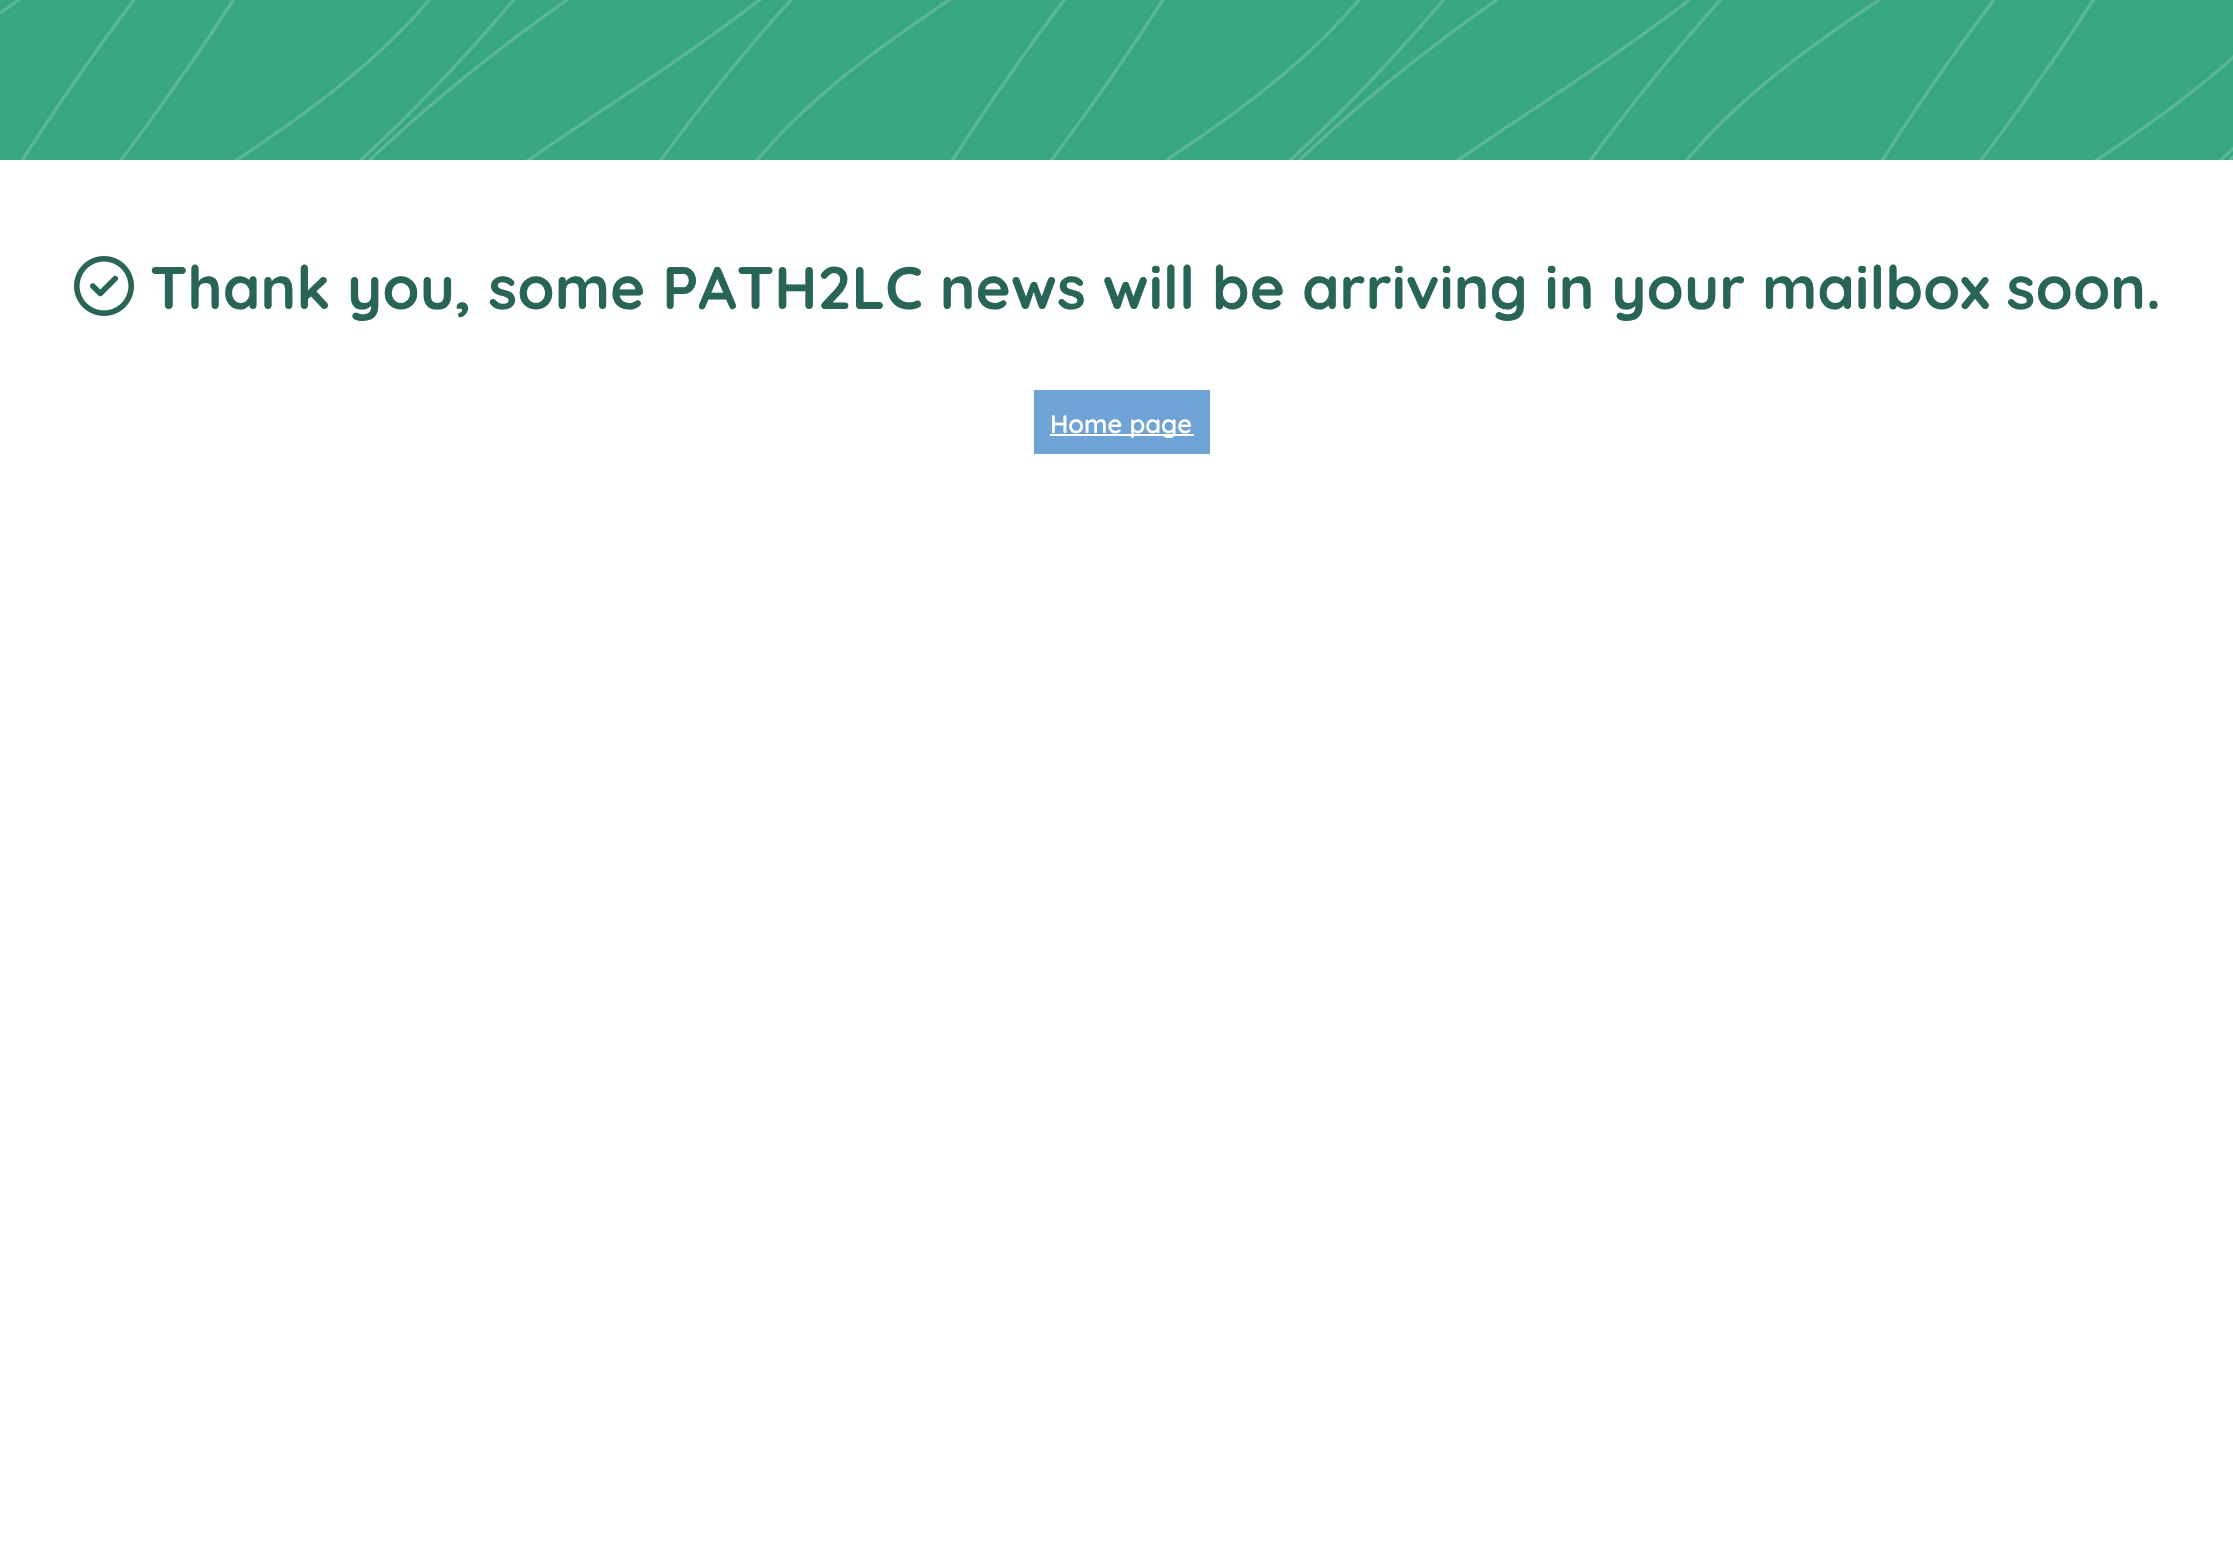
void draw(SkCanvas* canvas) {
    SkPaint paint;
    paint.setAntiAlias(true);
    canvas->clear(0xFFFFFFFF);
    canvas->drawImageRect(SkImages::DeferredFromEncodedData(SkData::MakeFromFileName("img1.png")), SkRect::MakeXYWH(0, 0, 2233, 160), SkSamplingOptions());
    canvas->drawImageRect(SkImages::DeferredFromEncodedData(SkData::MakeFromFileName("img2.png")), SkRect::MakeXYWH(74, 256, 60, 60), SkSamplingOptions());
    SkFont font1(fontMgr->matchFamilyStyle("Quicksand", SkFontStyle::Bold()), 60);
    font1.setSubpixel(true);
    paint.setColor(0xFF296557);
    canvas->drawString("Thank you, some PATH2LC news will be arriving in your mailbox soon.", 150, 309, font1, paint);
    paint.setColor(0xFF70A3D5);
    canvas->drawRect(SkRect::MakeXYWH(1034, 390, 176, 64), paint);
    paint.setColor(0xFFFFFFFF);
    canvas->drawRect(SkRect::MakeXYWH(1050, 434, 144, 2), paint);
    SkFont font2(fontMgr->matchFamilyStyle("Quicksand", SkFontStyle(600, SkFontStyle::kNormal_Width, SkFontStyle::kUpright_Slant)), 25.5f);
    font2.setSubpixel(true);
    canvas->drawString("Home page", 1050, 433, font2, paint);
}
